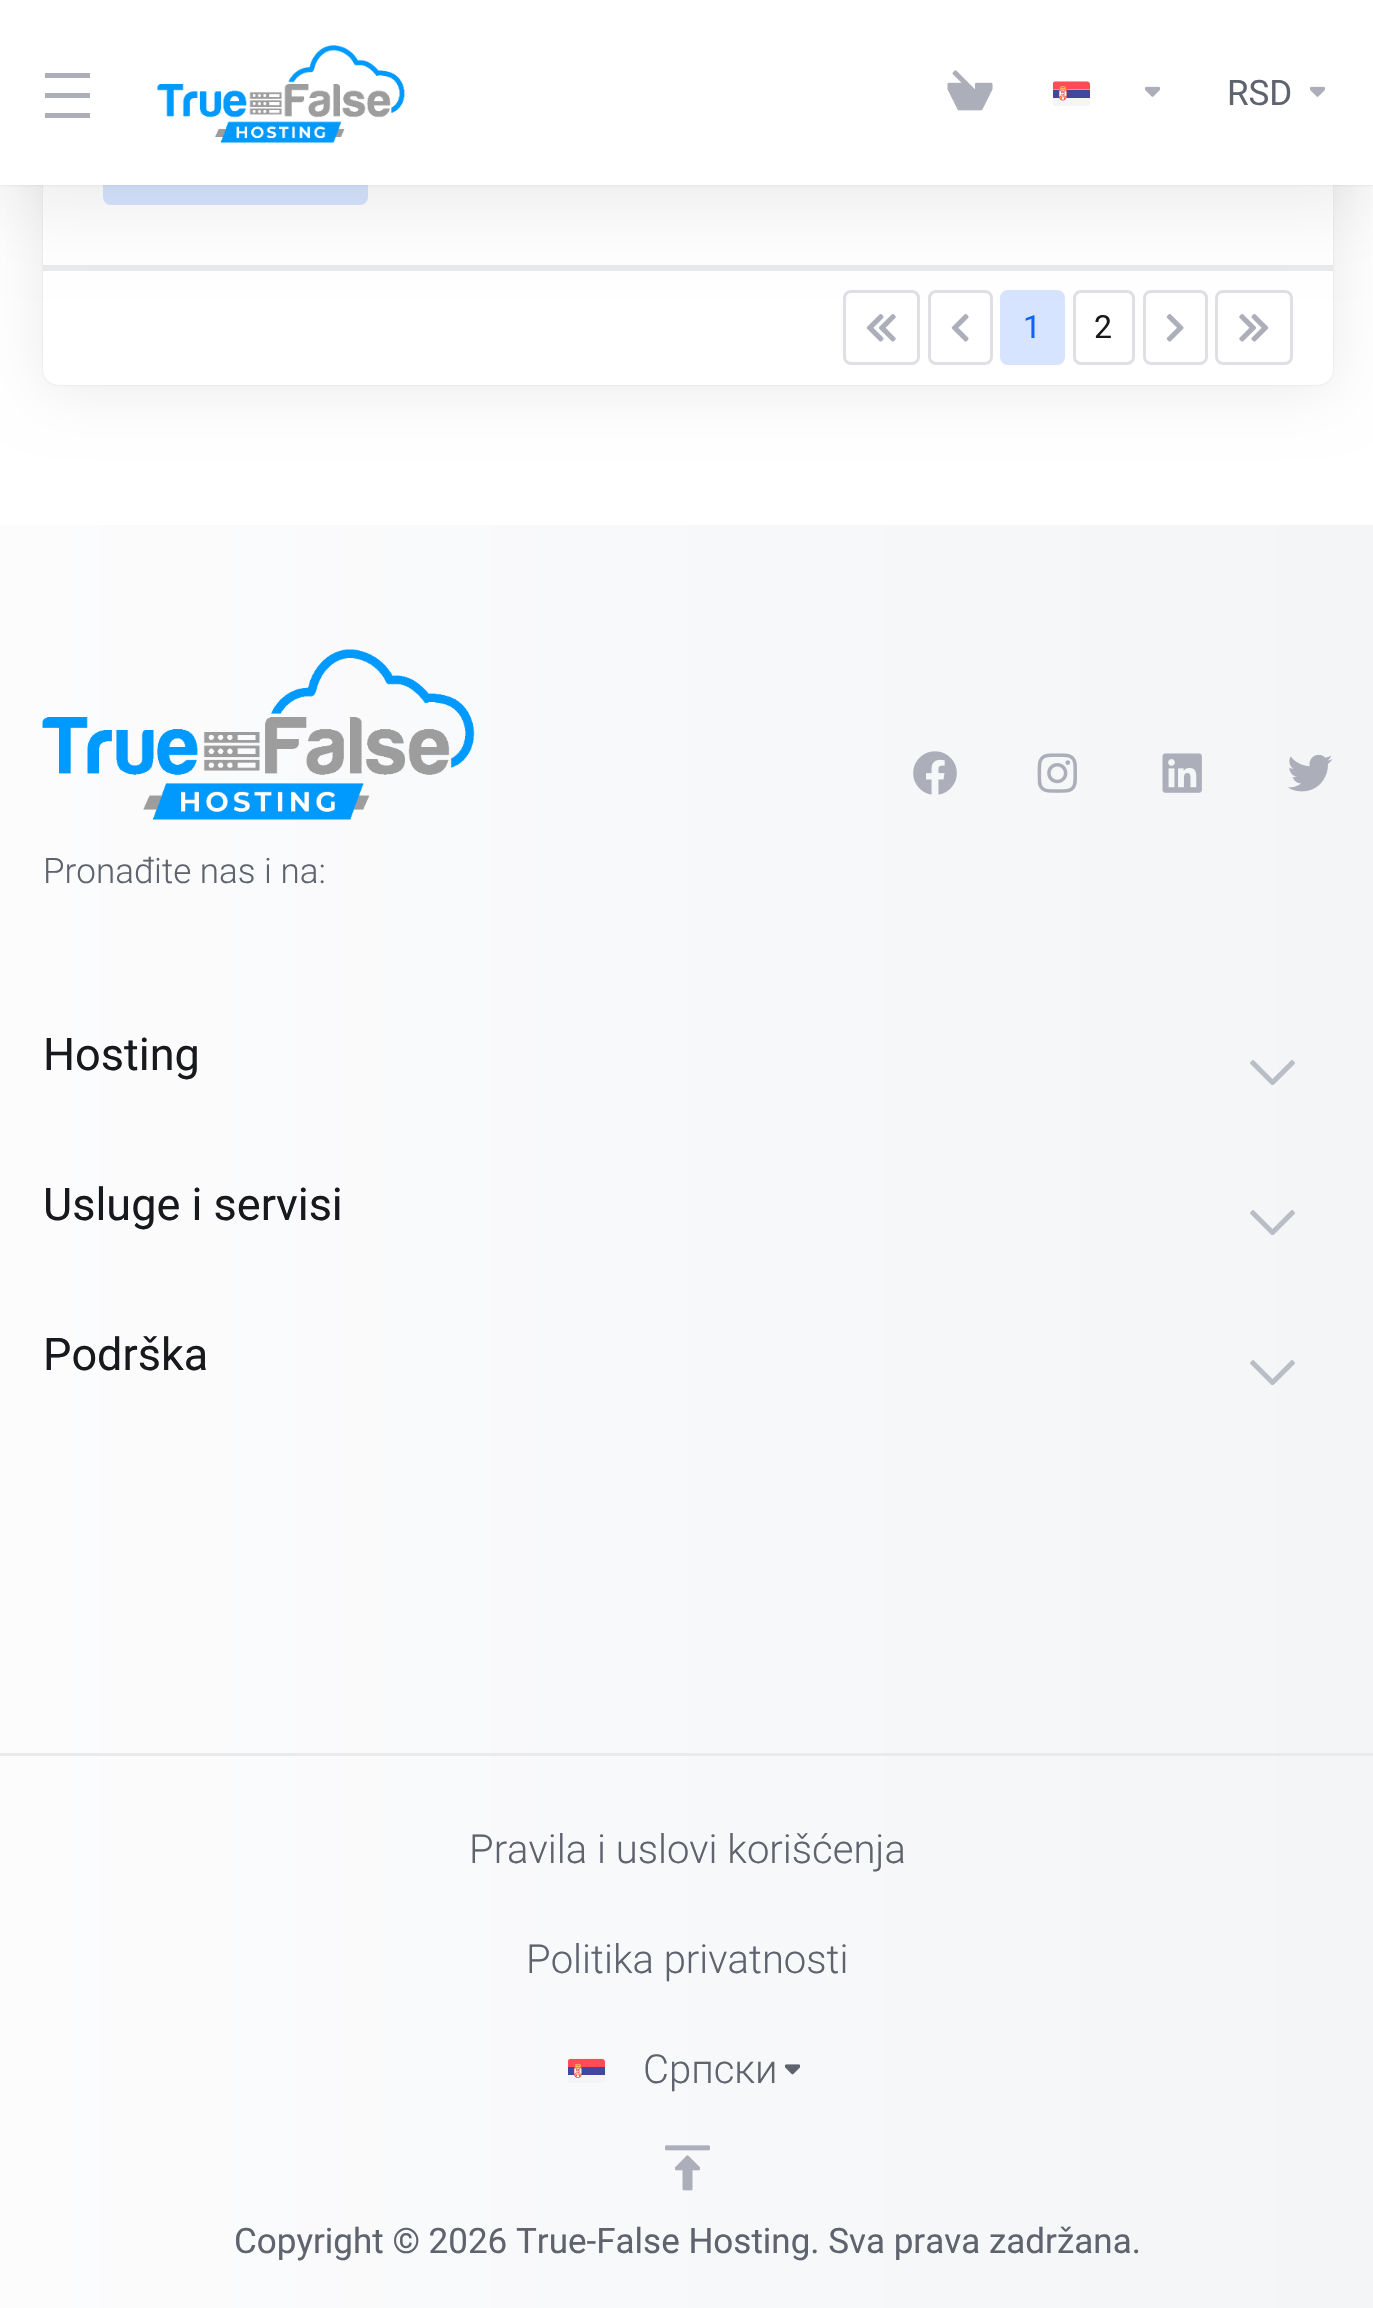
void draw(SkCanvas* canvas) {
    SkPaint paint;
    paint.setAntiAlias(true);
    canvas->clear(0xFFFFFFFF);
    paint.setColor(0x14000000);
    paint.setMaskFilter(SkMaskFilter::MakeBlur(kNormal_SkBlurStyle, 30));
    canvas->drawRoundRect(SkRect::MakeXYWH(43, -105, 1290, 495), 15, 15, paint);
    paint.setMaskFilter(nullptr);
    paint.setColor(0x1A000000);
    paint.setMaskFilter(SkMaskFilter::MakeBlur(kNormal_SkBlurStyle, 1));
    canvas->drawRoundRect(SkRect::MakeXYWH(43, -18, 1290, 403), 15, 15, paint);
    paint.setMaskFilter(nullptr);
    paint.setColor(0xFFFFFFFF);
    canvas->drawRoundRect(SkRect::MakeXYWH(43, -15, 1290, 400), 15, 15, paint);
    paint.setColor(0xFFD6E4FF);
    canvas->drawRoundRect(SkRect::MakeXYWH(104.5f, 116.5f, 262, 87), 6.5f, 6.5f, paint);
    paint.setStyle(SkPaint::kStroke_Style);
    paint.setStrokeWidth(3);
    canvas->drawRoundRect(SkRect::MakeXYWH(104.5f, 116.5f, 262, 87), 6.5f, 6.5f, paint);
    paint.setStyle(SkPaint::kFill_Style);
    paint.setColor(0xFFE9EAEC);
    canvas->drawRect(SkRect::MakeXYWH(43, 265, 1290, 6), paint);
    paint.setStyle(SkPaint::kStroke_Style);
    paint.setColor(0xFFDEE0E3);
    canvas->drawRoundRect(SkRect::MakeXYWH(844.5f, 291.5f, 74, 72), 6.5f, 6.5f, paint);
    canvas->drawImageRect(SkImages::DeferredFromEncodedData(SkData::MakeFromFileName("img5.png")), SkRect::MakeXYWH(866, 314, 30, 28), SkSamplingOptions());
    canvas->drawRoundRect(SkRect::MakeXYWH(929.5f, 291.5f, 62, 72), 6.5f, 6.5f, paint);
    canvas->drawImageRect(SkImages::DeferredFromEncodedData(SkData::MakeFromFileName("img6.png")), SkRect::MakeXYWH(951, 314, 18, 28), SkSamplingOptions());
    paint.setStyle(SkPaint::kFill_Style);
    paint.setColor(0xFFD6E4FF);
    canvas->drawRoundRect(SkRect::MakeXYWH(1001.5f, 291.5f, 62, 72), 6.5f, 6.5f, paint);
    paint.setStyle(SkPaint::kStroke_Style);
    canvas->drawRoundRect(SkRect::MakeXYWH(1001.5f, 291.5f, 62, 72), 6.5f, 6.5f, paint);
    paint.setColor(0xFFDEE0E3);
    canvas->drawRoundRect(SkRect::MakeXYWH(1074.5f, 291.5f, 59, 72), 6.5f, 6.5f, paint);
    canvas->drawRoundRect(SkRect::MakeXYWH(1144.5f, 291.5f, 62, 72), 6.5f, 6.5f, paint);
    canvas->drawImageRect(SkImages::DeferredFromEncodedData(SkData::MakeFromFileName("img7.png")), SkRect::MakeXYWH(1166, 314, 18, 28), SkSamplingOptions());
    canvas->drawRoundRect(SkRect::MakeXYWH(1216.5f, 291.5f, 75, 72), 6.5f, 6.5f, paint);
    canvas->drawImageRect(SkImages::DeferredFromEncodedData(SkData::MakeFromFileName("img8.png")), SkRect::MakeXYWH(1239, 314, 30, 28), SkSamplingOptions());
    paint.setStyle(SkPaint::kFill_Style);
    paint.setColor(0x14000000);
    paint.setMaskFilter(SkMaskFilter::MakeBlur(kNormal_SkBlurStyle, 40));
    canvas->drawRect(SkRect::MakeXYWH(0, 20, 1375, 185), paint);
    paint.setMaskFilter(nullptr);
    paint.setColor(0x1F000000);
    paint.setMaskFilter(SkMaskFilter::MakeBlur(kNormal_SkBlurStyle, 1));
    canvas->drawRect(SkRect::MakeXYWH(0, 0, 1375, 185), paint);
    paint.setMaskFilter(nullptr);
    paint.setColor(0xFFFFFFFF);
    canvas->drawRect(SkRect::MakeXYWH(0, 0, 1373, 185), paint);
    paint.setColor(0xFFACAFB9);
    canvas->drawRect(SkRect::MakeXYWH(45, 73, 45, 5), paint);
    canvas->drawRect(SkRect::MakeXYWH(45, 93, 45, 5), paint);
    canvas->drawRect(SkRect::MakeXYWH(45, 113, 45, 5), paint);
    canvas->drawImageRect(SkImages::DeferredFromEncodedData(SkData::MakeFromFileName("img1.png")), SkRect::MakeXYWH(157, 45, 248, 98), SkSamplingOptions());
    canvas->drawImageRect(SkImages::DeferredFromEncodedData(SkData::MakeFromFileName("img2.png")), SkRect::MakeXYWH(947, 70, 46, 41), SkSamplingOptions());
    canvas->drawImageRect(SkImages::DeferredFromEncodedData(SkData::MakeFromFileName("img3.png")), SkRect::MakeXYWH(1053, 81, 37, 25), SkSamplingOptions());
    canvas->drawImageRect(SkImages::DeferredFromEncodedData(SkData::MakeFromFileName("img4.png")), SkRect::MakeXYWH(1145, 86, 15, 11), SkSamplingOptions());
    SkFont font1(fontMgr->matchFamilyStyle("Roboto", SkFontStyle::Normal()), 35);
    font1.setSubpixel(true);
    paint.setColor(0xFF5E636E);
    canvas->drawString("RSD", 1227, 105, font1, paint);
    canvas->drawImageRect(SkImages::DeferredFromEncodedData(SkData::MakeFromFileName("img4.png")), SkRect::MakeXYWH(1310, 86, 15, 11), SkSamplingOptions());
    SkFont font2(fontMgr->matchFamilyStyle("Roboto", SkFontStyle::Normal()), 32);
    font2.setSubpixel(true);
    paint.setColor(0xFF1062FE);
    canvas->drawString("1", 1023, 338, font2, paint);
    paint.setColor(0xFF17191C);
    canvas->drawString("2", 1094, 338, font2, paint);
    {
        const SkColor colors[] = {0xFFF3F5F7, 0xFFFCFCFD};
        const float stops[] = {0, 1};
        const SkPoint ends[] = {{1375, 1418}, {0, 1418}};
        paint.setShader(SkGradientShader::MakeLinear(ends, colors, stops, 2, SkTileMode::kClamp));
        paint.setAlpha(255);
    }
    canvas->drawRect(SkRect::MakeXYWH(0, 525, 1373, 1783), paint);
    canvas->drawImageRect(SkImages::DeferredFromEncodedData(SkData::MakeFromFileName("img9.png")), SkRect::MakeXYWH(913, 751, 44, 44), SkSamplingOptions());
    canvas->drawImageRect(SkImages::DeferredFromEncodedData(SkData::MakeFromFileName("img10.png")), SkRect::MakeXYWH(1037, 753, 40, 40), SkSamplingOptions());
    canvas->drawImageRect(SkImages::DeferredFromEncodedData(SkData::MakeFromFileName("img11.png")), SkRect::MakeXYWH(1162, 753, 40, 40), SkSamplingOptions());
    canvas->drawImageRect(SkImages::DeferredFromEncodedData(SkData::MakeFromFileName("img12.png")), SkRect::MakeXYWH(1287, 754, 46, 38), SkSamplingOptions());
    canvas->drawImageRect(SkImages::DeferredFromEncodedData(SkData::MakeFromFileName("img13.png")), SkRect::MakeXYWH(42, 649, 433, 171), SkSamplingOptions());
    SkFont font3(fontMgr->matchFamilyStyle("Roboto", SkFontStyle(300, SkFontStyle::kNormal_Width, SkFontStyle::kUpright_Slant)), 35);
    font3.setSubpixel(true);
    paint.setShader(nullptr);
    paint.setColor(0xFF5E636E);
    canvas->drawString("Pronađite nas i na:", 43, 883, font3, paint);
    SkFont font4(fontMgr->matchFamilyStyle("Roboto", SkFontStyle::Normal()), 45);
    font4.setSubpixel(true);
    paint.setColor(0xFF17191C);
    canvas->drawString("Hosting", 43, 1070, font4, paint);
    canvas->drawImageRect(SkImages::DeferredFromEncodedData(SkData::MakeFromFileName("img14.png")), SkRect::MakeXYWH(1250, 1060, 45, 25), SkSamplingOptions());
    canvas->drawString("Usluge i servisi", 43, 1220, font4, paint);
    canvas->drawImageRect(SkImages::DeferredFromEncodedData(SkData::MakeFromFileName("img14.png")), SkRect::MakeXYWH(1250, 1210, 45, 25), SkSamplingOptions());
    canvas->drawString("Podrška", 43, 1370, font4, paint);
    canvas->drawImageRect(SkImages::DeferredFromEncodedData(SkData::MakeFromFileName("img14.png")), SkRect::MakeXYWH(1250, 1360, 45, 25), SkSamplingOptions());
    paint.setColor(0xFFE9EAEC);
    canvas->drawRect(SkRect::MakeXYWH(0, 1753, 1373, 3), paint);
    SkFont font5(fontMgr->matchFamilyStyle("Roboto", SkFontStyle(300, SkFontStyle::kNormal_Width, SkFontStyle::kUpright_Slant)), 40);
    font5.setSubpixel(true);
    paint.setColor(0xFF5E636E);
    canvas->drawString("Pravila i uslovi korišćenja", 469, 1863, font5, paint);
    canvas->drawString("Politika privatnosti", 526, 1973, font5, paint);
    canvas->drawImageRect(SkImages::DeferredFromEncodedData(SkData::MakeFromFileName("img15.png")), SkRect::MakeXYWH(568, 2058, 37, 25), SkSamplingOptions());
    canvas->drawString("Српски", 643, 2083, font5, paint);
    canvas->drawImageRect(SkImages::DeferredFromEncodedData(SkData::MakeFromFileName("img16.png")), SkRect::MakeXYWH(785, 2064, 15, 11), SkSamplingOptions());
    canvas->drawImageRect(SkImages::DeferredFromEncodedData(SkData::MakeFromFileName("img17.png")), SkRect::MakeXYWH(665, 2145, 45, 46), SkSamplingOptions());
    canvas->drawString("Copyright © 2026 True-False Hosting. Sva prava zadržana.", 234, 2253, font1, paint);
}
